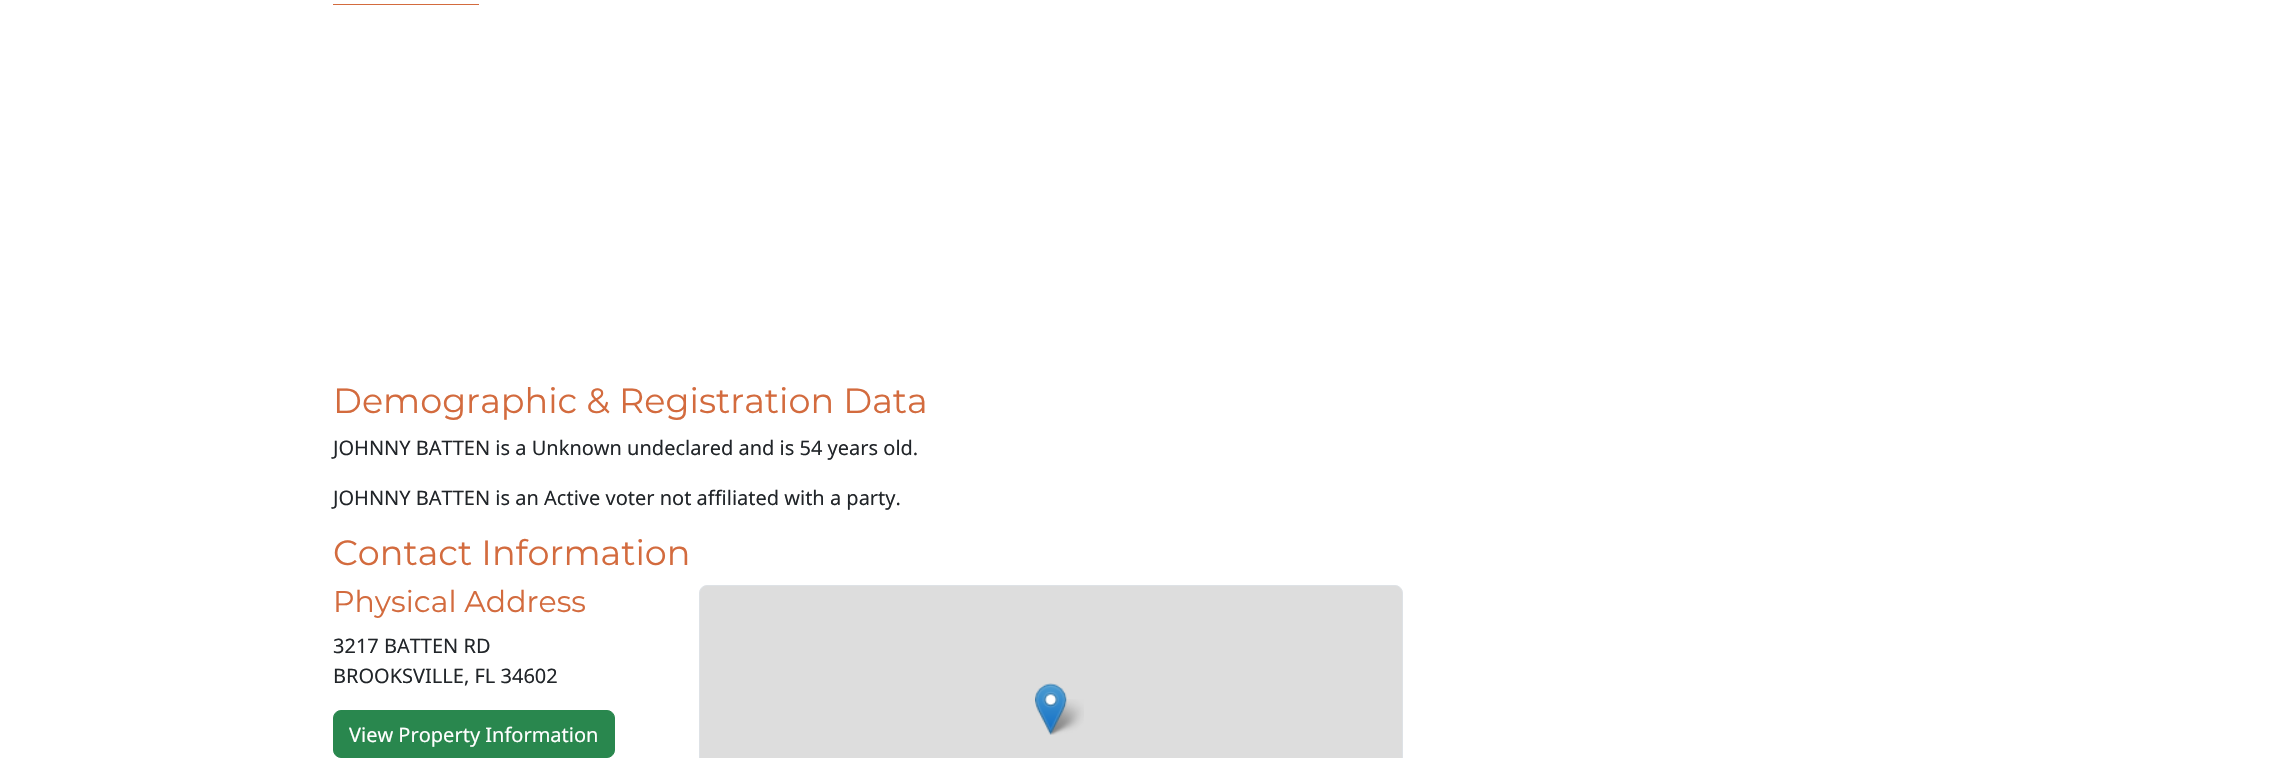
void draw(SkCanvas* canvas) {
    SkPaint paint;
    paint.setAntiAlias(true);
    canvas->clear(0xFFFFFFFF);
    paint.setColor(0xFFD36B3E);
    canvas->drawRect(SkRect::MakeXYWH(333, 4, 146, 1), paint);
    SkFont font1(fontMgr->matchFamilyStyle("Montserrat", SkFontStyle::Normal()), 35);
    font1.setSubpixel(true);
    canvas->drawString("Demographic & Registration Data", 333, 413, font1, paint);
    SkFont font2(fontMgr->matchFamilyStyle("Noto Sans", SkFontStyle::Normal()), 20);
    font2.setSubpixel(true);
    paint.setColor(0xFF212529);
    canvas->drawString("JOHNNY BATTEN is a Unknown undeclared and is 54 years old.", 333, 455, font2, paint);
    canvas->drawString("JOHNNY BATTEN is an Active voter not affiliated with a party.", 333, 505, font2, paint);
    paint.setColor(0xFFD36B3E);
    canvas->drawString("Contact Information", 333, 565, font1, paint);
    SkFont font3(fontMgr->matchFamilyStyle("Montserrat", SkFontStyle::Normal()), 30);
    font3.setSubpixel(true);
    canvas->drawString("Physical Address", 333, 612, font3, paint);
    paint.setColor(0xFF212529);
    canvas->drawString("3217 BATTEN RD", 333, 653, font2, paint);
    canvas->drawString("BROOKSVILLE, FL 34602", 333, 683, font2, paint);
    paint.setColor(0xFF29874E);
    canvas->drawRoundRect(SkRect::MakeXYWH(333.5f, 710.5f, 281, 47), 7.5f, 7.5f, paint);
    paint.setStyle(SkPaint::kStroke_Style);
    paint.setStrokeWidth(1);
    canvas->drawRoundRect(SkRect::MakeXYWH(333.5f, 710.5f, 281, 47), 7.5f, 7.5f, paint);
    paint.setStyle(SkPaint::kFill_Style);
    paint.setColor(0xFFFFFFFF);
    canvas->drawString("View Property Information", 349, 742, font2, paint);
    paint.setColor(0xFFDDDDDD);
    canvas->drawRoundRect(SkRect::MakeXYWH(699.5f, 585.5f, 703, 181), 7.5f, 7.5f, paint);
    paint.setStyle(SkPaint::kStroke_Style);
    paint.setColor(0xFFDEE2E6);
    canvas->drawRoundRect(SkRect::MakeXYWH(699.5f, 585.5f, 703, 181), 7.5f, 7.5f, paint);
    canvas->drawImageRect(SkImages::DeferredFromEncodedData(SkData::MakeFromFileName("img2.png")), SkRect::MakeXYWH(1046, 699, 38, 36), SkSamplingOptions());
    canvas->drawImageRect(SkImages::DeferredFromEncodedData(SkData::MakeFromFileName("img1.png")), SkRect::MakeXYWH(1035, 683, 32, 52), SkSamplingOptions());
}
